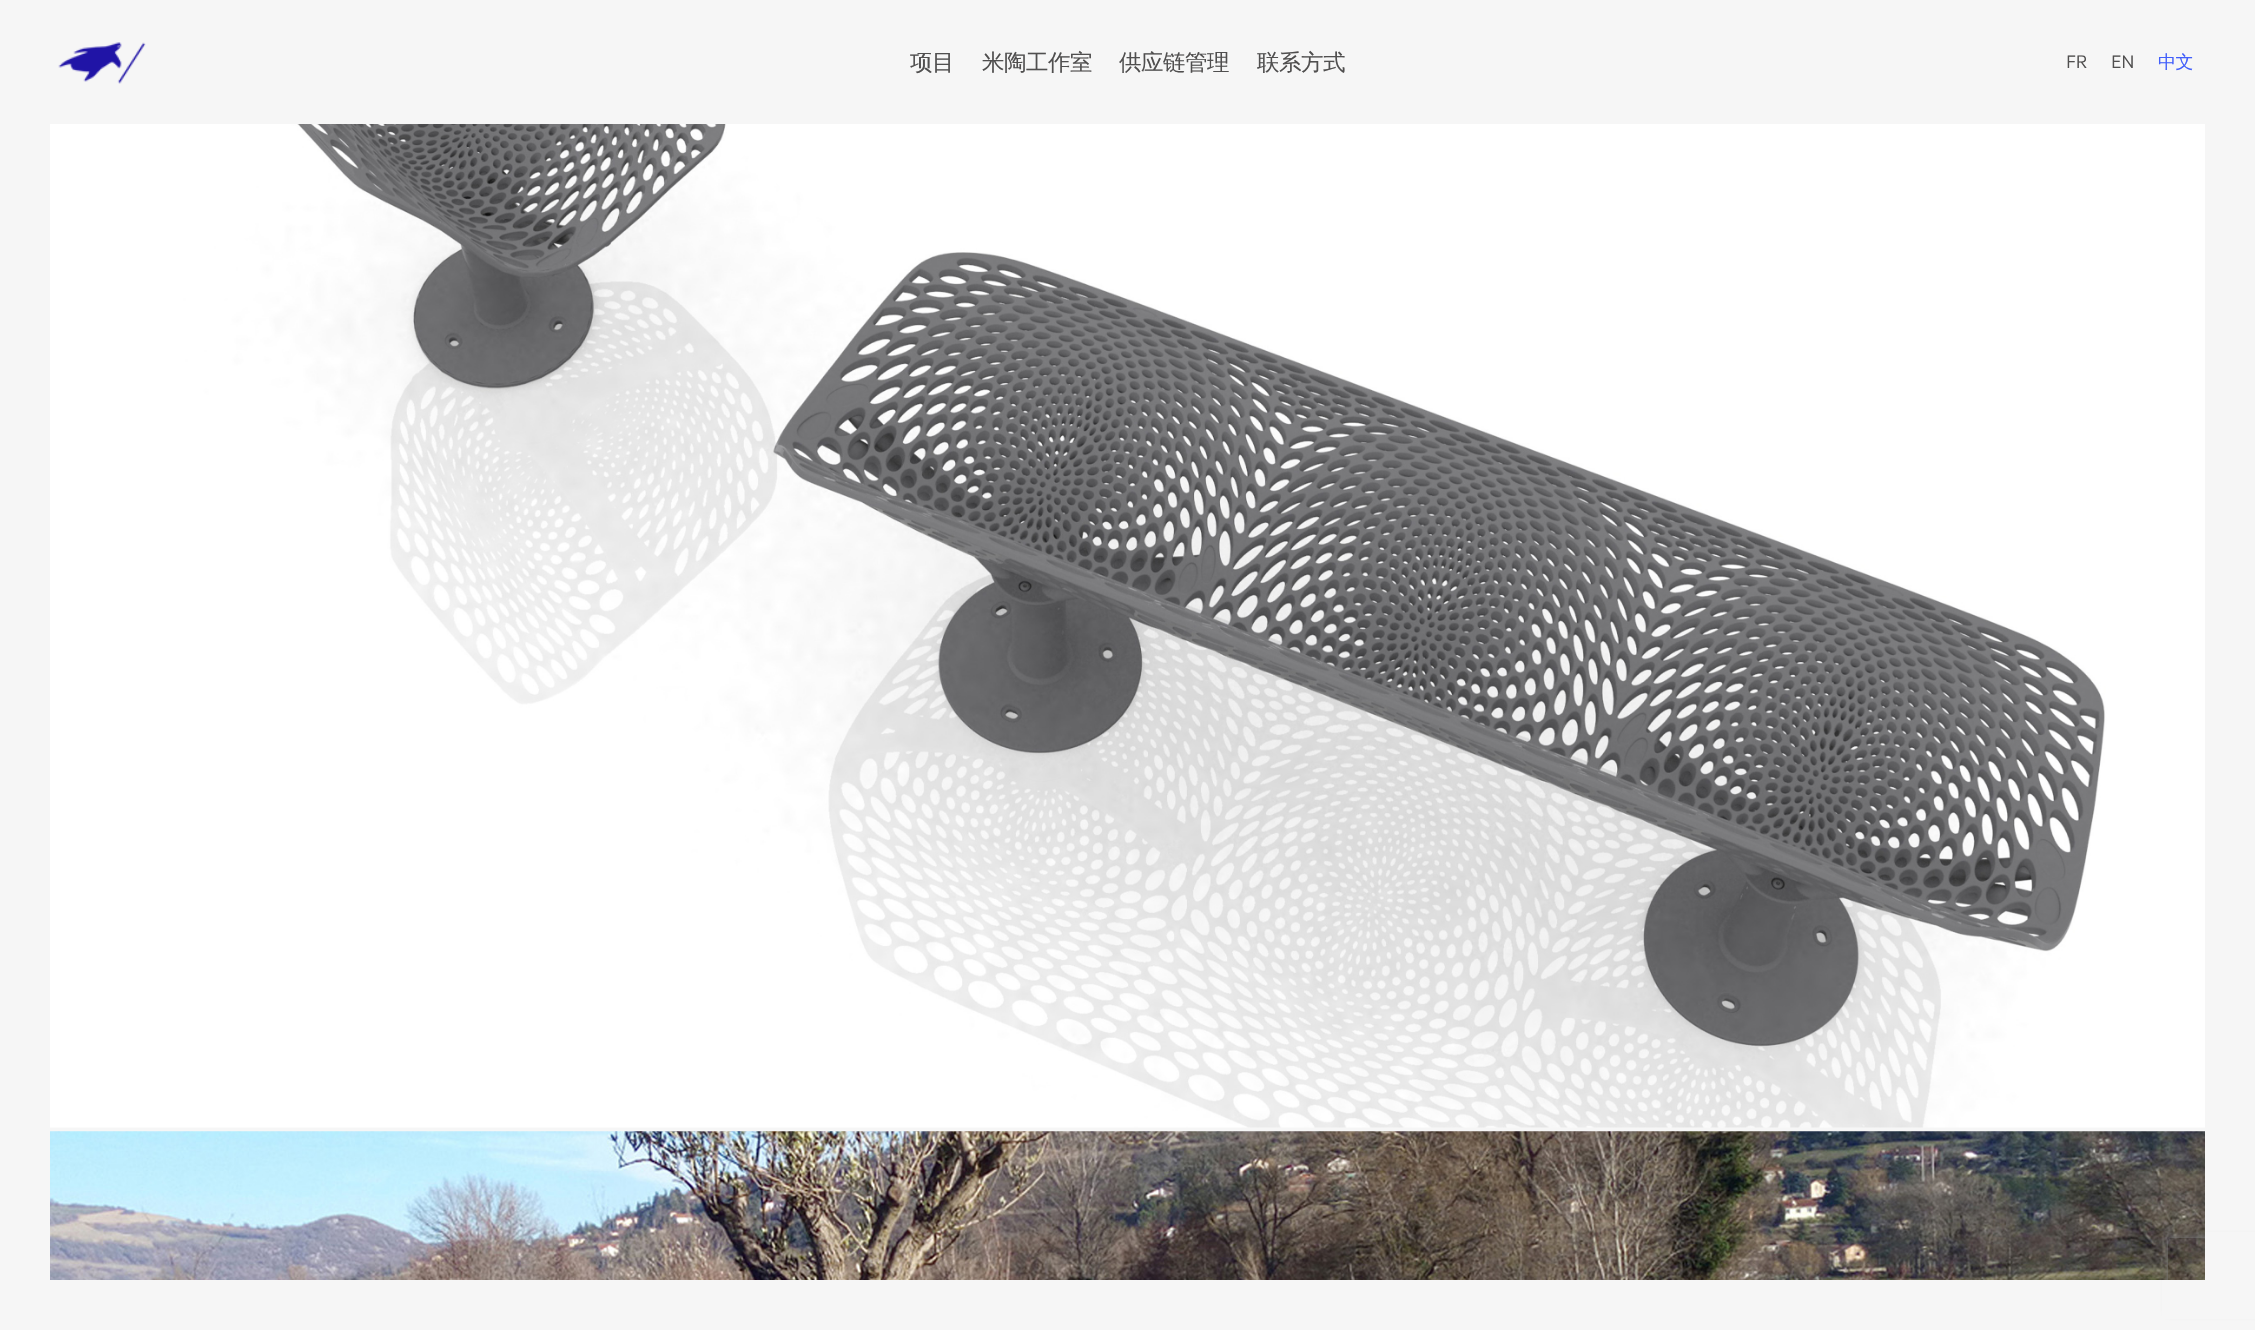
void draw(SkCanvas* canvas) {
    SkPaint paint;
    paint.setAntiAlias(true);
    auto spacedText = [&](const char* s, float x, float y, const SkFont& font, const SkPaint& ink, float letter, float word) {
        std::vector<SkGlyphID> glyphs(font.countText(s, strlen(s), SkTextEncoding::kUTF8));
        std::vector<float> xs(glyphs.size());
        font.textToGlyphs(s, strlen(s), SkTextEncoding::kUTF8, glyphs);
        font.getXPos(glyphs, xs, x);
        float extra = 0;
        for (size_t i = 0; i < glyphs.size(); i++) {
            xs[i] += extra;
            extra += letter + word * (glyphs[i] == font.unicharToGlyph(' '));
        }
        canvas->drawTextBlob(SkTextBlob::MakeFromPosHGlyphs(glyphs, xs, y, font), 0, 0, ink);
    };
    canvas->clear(0xFFF6F6F6);
    canvas->drawImageRect(SkImages::DeferredFromEncodedData(SkData::MakeFromFileName("img1.png")), SkRect::MakeXYWH(58, 42, 88, 42), SkSamplingOptions());
    SkFont font1(fontMgr->matchFamilyStyle("WenQuanYi Zen Hei", SkFontStyle(500, SkFontStyle::kNormal_Width, SkFontStyle::kUpright_Slant)), 22.5f);
    font1.setSubpixel(true);
    paint.setColor(0xFF504F4F);
    spacedText("项目", 910, 70, font1, paint, -0.5f, 0);
    spacedText("米陶工作室", 982, 70, font1, paint, -0.5f, 0);
    spacedText("供应链管理", 1119, 70, font1, paint, -0.5f, 0);
    spacedText("联系方式", 1257, 70, font1, paint, -0.5f, 0);
    SkFont font2(fontMgr->matchFamilyStyle("Geologica", SkFontStyle(200, SkFontStyle::kNormal_Width, SkFontStyle::kUpright_Slant)), 18);
    font2.setSubpixel(true);
    spacedText("FR", 2066, 68, font2, paint, -0.5f, 0);
    spacedText("EN", 2111, 68, font2, paint, -0.5f, 0);
    SkFont font3(fontMgr->matchFamilyStyle("WenQuanYi Zen Hei", SkFontStyle(500, SkFontStyle::kNormal_Width, SkFontStyle::kUpright_Slant)), 18);
    font3.setSubpixel(true);
    paint.setColor(0xFF425FFB);
    spacedText("中文", 2158, 68, font3, paint, -0.5f, 0);
    canvas->drawImageRect(SkImages::DeferredFromEncodedData(SkData::MakeFromFileName("img2.png")), SkRect::MakeXYWH(50, 124, 2155, 1004), SkSamplingOptions());
    canvas->drawImageRect(SkImages::DeferredFromEncodedData(SkData::MakeFromFileName("img3.png")), SkRect::MakeXYWH(50, 1131, 2155, 149), SkSamplingOptions());
    canvas->save();
    canvas->clipPath(SkPathBuilder(SkPathFillType::kEvenOdd).moveTo(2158, 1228).lineTo(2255, 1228).lineTo(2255, 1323).lineTo(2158, 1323).close().moveTo(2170.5f, 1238).lineTo(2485.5f, 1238).cubicTo(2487, 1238, 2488, 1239, 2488, 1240.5f).lineTo(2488, 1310.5f).cubicTo(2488, 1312, 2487, 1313, 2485.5f, 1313).lineTo(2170.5f, 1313).cubicTo(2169, 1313, 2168, 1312, 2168, 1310.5f).lineTo(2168, 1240.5f).cubicTo(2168, 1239, 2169, 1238, 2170.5f, 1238).close().detach(), true);
    paint.setColor(0xFF808080);
    paint.setMaskFilter(SkMaskFilter::MakeBlur(kNormal_SkBlurStyle, 3));
    canvas->drawRoundRect(SkRect::MakeXYWH(2168, 1238, 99, 75), 2.5f, 2.5f, paint);
    paint.setMaskFilter(nullptr);
    canvas->restore();
    paint.setColor(0xFFF6F6F6);
    canvas->drawRect(SkRect::MakeXYWH(2205, 1232, 50, 6), paint);
    canvas->drawRect(SkRect::MakeXYWH(2162, 1280, 93, 39), paint);
}
